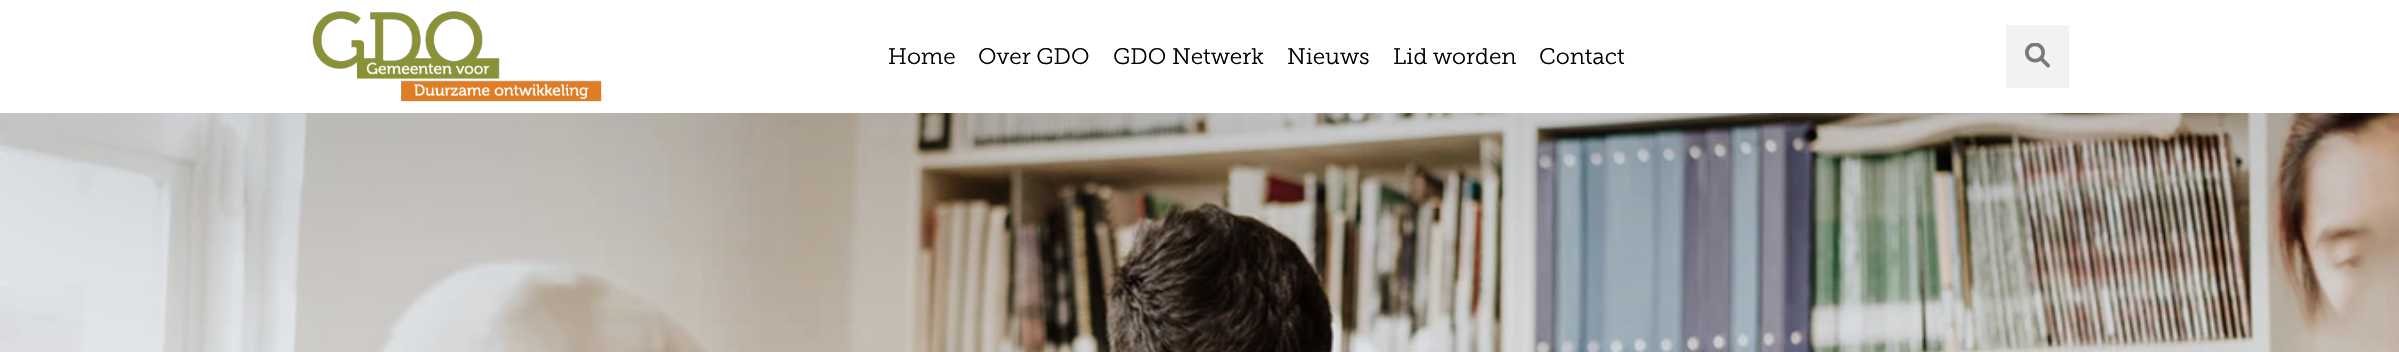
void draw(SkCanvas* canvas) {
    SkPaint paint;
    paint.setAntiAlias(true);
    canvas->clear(0xFFFFFFFF);
    canvas->drawImageRect(SkImages::DeferredFromEncodedData(SkData::MakeFromFileName("img3.png")), SkRect::MakeXYWH(0, 113, 2399, 239), SkSamplingOptions());
    paint.setColor(0x4D000000);
    paint.setMaskFilter(SkMaskFilter::MakeBlur(kNormal_SkBlurStyle, 220));
    canvas->drawRect(SkRect::MakeXYWH(3, 3, 2395, 107), paint);
    paint.setMaskFilter(nullptr);
    paint.setColor(0xFFFFFFFF);
    canvas->drawRect(SkRect::MakeXYWH(0, 0, 2399, 113), paint);
    canvas->drawImageRect(SkImages::DeferredFromEncodedData(SkData::MakeFromFileName("img1.png")), SkRect::MakeXYWH(312, 11, 290, 91), SkSamplingOptions());
    SkFont font1(fontMgr->matchFamilyStyle("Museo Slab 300", SkFontStyle(300, SkFontStyle::kNormal_Width, SkFontStyle::kUpright_Slant)), 22.5f);
    font1.setSubpixel(true);
    paint.setColor(0xFF000000);
    canvas->drawString("Home", 888, 64, font1, paint);
    canvas->drawString("Over GDO", 978, 64, font1, paint);
    canvas->drawString("GDO Netwerk", 1113, 64, font1, paint);
    canvas->drawString("Nieuws", 1287, 64, font1, paint);
    canvas->drawString("Lid worden", 1393, 64, font1, paint);
    canvas->drawString("Contact", 1539, 64, font1, paint);
    paint.setColor(0xFFF2F2F2);
    canvas->drawRect(SkRect::MakeXYWH(2006, 25, 63, 63), paint);
    canvas->drawImageRect(SkImages::DeferredFromEncodedData(SkData::MakeFromFileName("img2.png")), SkRect::MakeXYWH(2025, 43, 25, 25), SkSamplingOptions());
}
